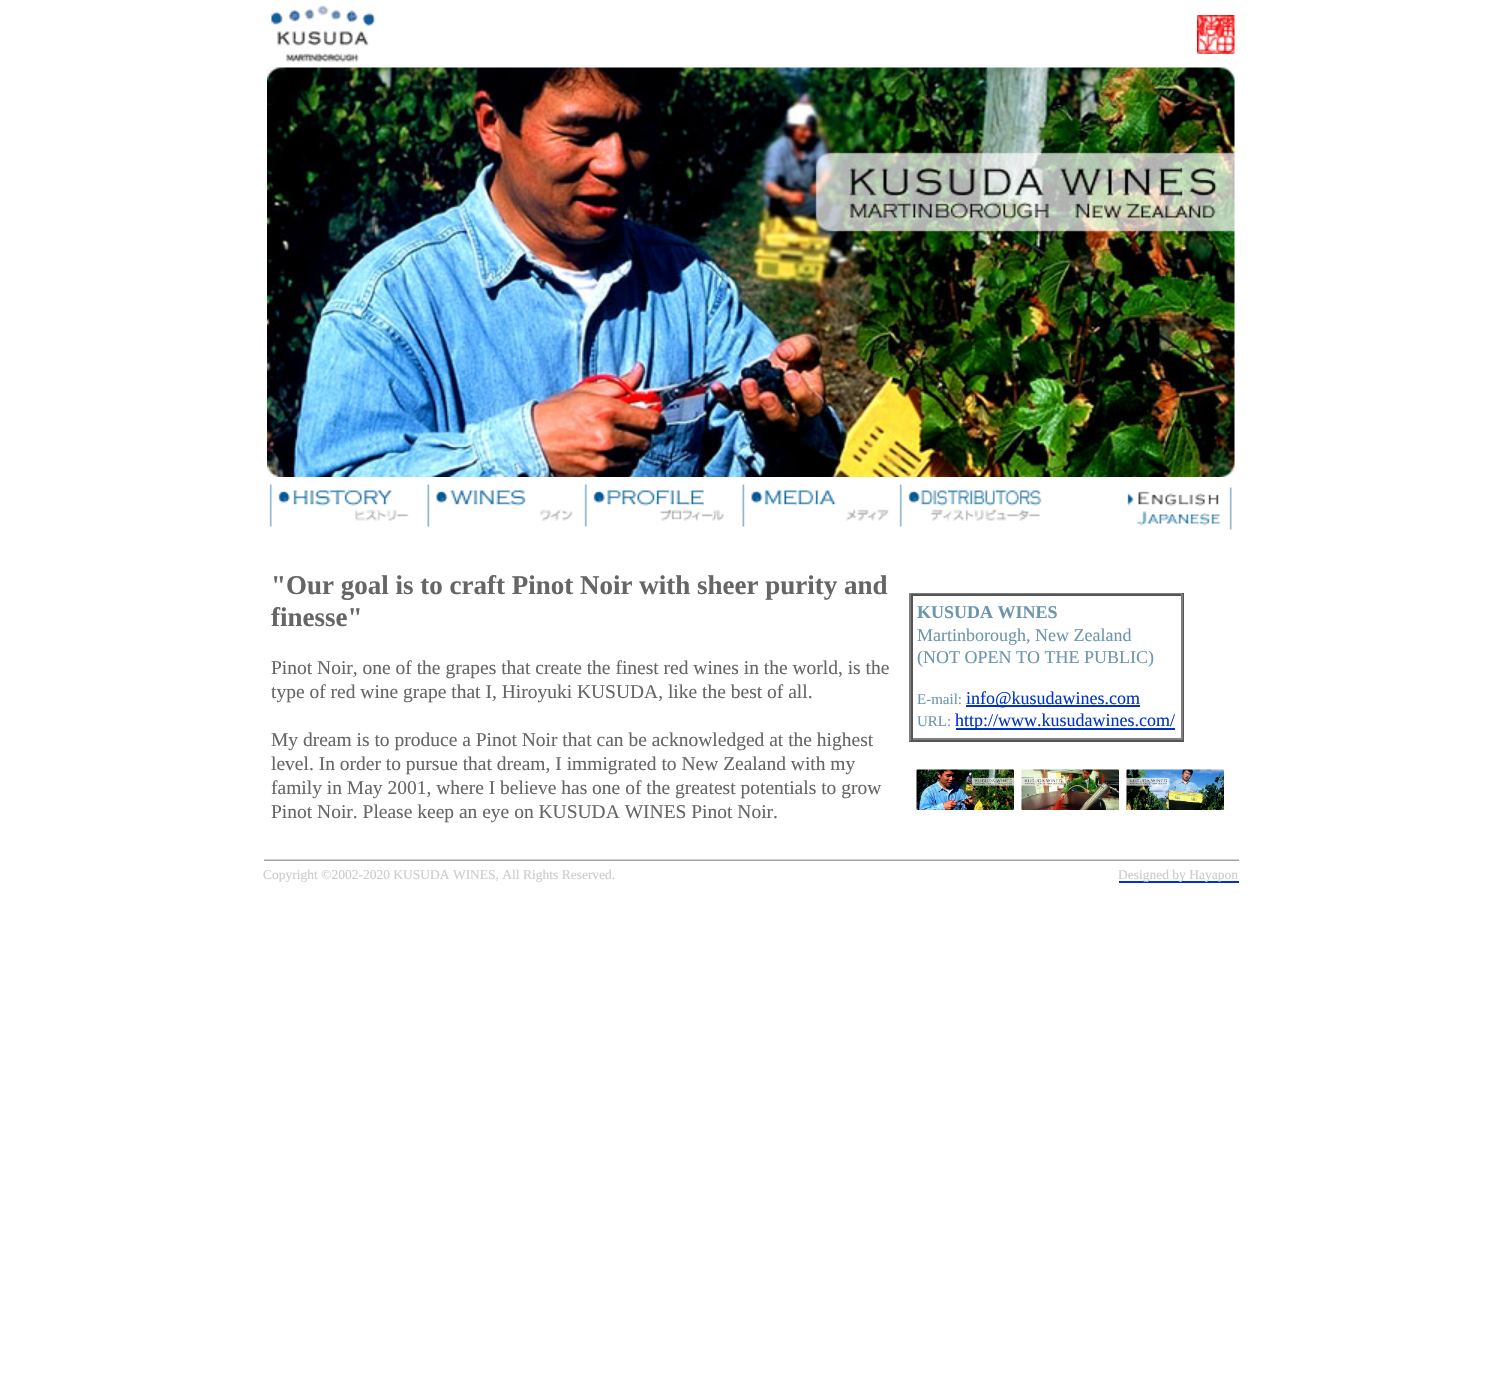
void draw(SkCanvas* canvas) {
    SkPaint paint;
    paint.setAntiAlias(true);
    canvas->clear(0xFFFFFFFF);
    canvas->drawImageRect(SkImages::DeferredFromEncodedData(SkData::MakeFromFileName("img1.png")), SkRect::MakeXYWH(270, 4, 106, 58), SkSamplingOptions());
    canvas->drawImageRect(SkImages::DeferredFromEncodedData(SkData::MakeFromFileName("img2.png")), SkRect::MakeXYWH(1197, 15, 38, 39), SkSamplingOptions());
    canvas->drawImageRect(SkImages::DeferredFromEncodedData(SkData::MakeFromFileName("img3.png")), SkRect::MakeXYWH(267, 67, 968, 410), SkSamplingOptions());
    canvas->drawImageRect(SkImages::DeferredFromEncodedData(SkData::MakeFromFileName("img4.png")), SkRect::MakeXYWH(269, 484, 140, 43), SkSamplingOptions());
    canvas->drawImageRect(SkImages::DeferredFromEncodedData(SkData::MakeFromFileName("img5.png")), SkRect::MakeXYWH(427, 484, 146, 43), SkSamplingOptions());
    canvas->drawImageRect(SkImages::DeferredFromEncodedData(SkData::MakeFromFileName("img6.png")), SkRect::MakeXYWH(584, 484, 141, 43), SkSamplingOptions());
    canvas->drawImageRect(SkImages::DeferredFromEncodedData(SkData::MakeFromFileName("img7.png")), SkRect::MakeXYWH(742, 484, 147, 43), SkSamplingOptions());
    canvas->drawImageRect(SkImages::DeferredFromEncodedData(SkData::MakeFromFileName("img8.png")), SkRect::MakeXYWH(899, 484, 143, 43), SkSamplingOptions());
    canvas->drawImageRect(SkImages::DeferredFromEncodedData(SkData::MakeFromFileName("img9.png")), SkRect::MakeXYWH(1127, 487, 105, 43), SkSamplingOptions());
    SkFont font1(fontMgr->matchFamilyStyle("Liberation Serif", SkFontStyle::Bold()), 27);
    font1.setSubpixel(true);
    paint.setColor(0xFF666666);
    canvas->drawString("\"Our goal is to craft Pinot Noir with sheer purity and", 271, 594, font1, paint);
    canvas->drawString("finesse\"", 271, 626, font1, paint);
    SkFont font2(fontMgr->matchFamilyStyle("Liberation Serif", SkFontStyle::Normal()), 19.5f);
    font2.setSubpixel(true);
    canvas->drawString("Pinot Noir, one of the grapes that create the finest red wines in the world, is the", 271, 674, font2, paint);
    canvas->drawString("type of red wine grape that I, Hiroyuki KUSUDA, like the best of all.", 271, 698, font2, paint);
    canvas->drawString("My dream is to produce a Pinot Noir that can be acknowledged at the highest", 271, 746, font2, paint);
    canvas->drawString("level. In order to pursue that dream, I immigrated to New Zealand with my", 271, 770, font2, paint);
    canvas->drawString("family in May 2001, where I believe has one of the greatest potentials to grow", 271, 794, font2, paint);
    canvas->drawString("Pinot Noir. Please keep an eye on KUSUDA WINES Pinot Noir.", 271, 818, font2, paint);
    paint.setColor(0xFF808080);
    canvas->drawRect(SkRect::MakeXYWH(909, 593, 275, 1), paint);
    paint.setColor(0xFF555555);
    canvas->drawRect(SkRect::MakeXYWH(1182, 593, 2, 148), paint);
    canvas->drawRect(SkRect::MakeXYWH(909, 740, 275, 2), paint);
    paint.setColor(0xFF808080);
    canvas->drawRect(SkRect::MakeXYWH(909, 593, 2, 148), paint);
    paint.setColor(0xFF555555);
    canvas->drawRect(SkRect::MakeXYWH(911, 594, 271, 2), paint);
    paint.setColor(0xFF808080);
    canvas->drawRect(SkRect::MakeXYWH(1181, 594, 2, 146), paint);
    canvas->drawRect(SkRect::MakeXYWH(911, 738, 271, 2), paint);
    paint.setColor(0xFF555555);
    canvas->drawRect(SkRect::MakeXYWH(911, 594, 2, 146), paint);
    SkFont font3(fontMgr->matchFamilyStyle("Liberation Serif", SkFontStyle::Bold()), 18);
    font3.setSubpixel(true);
    paint.setColor(0xFF6D96AE);
    canvas->drawString("KUSUDA WINES", 917, 618, font3, paint);
    SkFont font4(fontMgr->matchFamilyStyle("Liberation Serif", SkFontStyle::Normal()), 18);
    font4.setSubpixel(true);
    canvas->drawString("Martinborough, New Zealand", 917, 641, font4, paint);
    canvas->drawString("(NOT OPEN TO THE PUBLIC)", 917, 663, font4, paint);
    SkFont font5(fontMgr->matchFamilyStyle("Liberation Serif", SkFontStyle::Normal()), 15);
    font5.setSubpixel(true);
    canvas->drawString("E-mail:", 917, 704, font5, paint);
    paint.setColor(0xFF0033CC);
    canvas->drawRect(SkRect::MakeXYWH(966, 705, 174, 2), paint);
    canvas->drawString("info@kusudawines.com", 966, 704, font4, paint);
    paint.setColor(0xFF6D96AE);
    canvas->drawString("URL:", 917, 726, font5, paint);
    paint.setColor(0xFF0033CC);
    canvas->drawRect(SkRect::MakeXYWH(956, 728, 219, 2), paint);
    canvas->drawString("http://www.kusudawines.com/", 955, 726, font4, paint);
    canvas->drawImageRect(SkImages::DeferredFromEncodedData(SkData::MakeFromFileName("img10.png")), SkRect::MakeXYWH(916, 769, 98, 41), SkSamplingOptions());
    canvas->drawImageRect(SkImages::DeferredFromEncodedData(SkData::MakeFromFileName("img11.png")), SkRect::MakeXYWH(1021, 769, 98, 41), SkSamplingOptions());
    canvas->drawImageRect(SkImages::DeferredFromEncodedData(SkData::MakeFromFileName("img12.png")), SkRect::MakeXYWH(1126, 769, 98, 41), SkSamplingOptions());
    canvas->drawImageRect(SkImages::DeferredFromEncodedData(SkData::MakeFromFileName("img13.png")), SkRect::MakeXYWH(264, 859, 975, 2), SkSamplingOptions());
    SkFont font6(fontMgr->matchFamilyStyle("Liberation Serif", SkFontStyle::Normal()), 13.5f);
    font6.setSubpixel(true);
    paint.setColor(0xFFCCCCCC);
    canvas->drawString("Copyright ©2002-2020 KUSUDA WINES, All Rights Reserved.", 263, 879, font6, paint);
    paint.setColor(0xFF0033CC);
    canvas->drawRect(SkRect::MakeXYWH(1119, 881, 120, 2), paint);
    paint.setColor(0xFFCCCCCC);
    canvas->drawString("Designed by Hayapon", 1118, 879, font6, paint);
}
